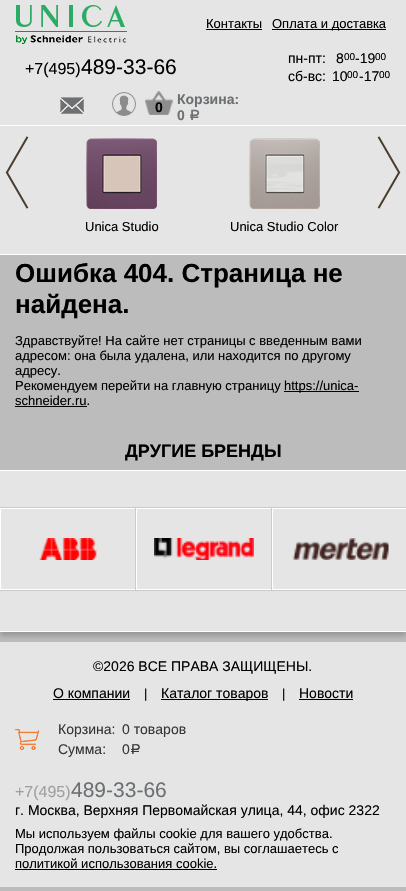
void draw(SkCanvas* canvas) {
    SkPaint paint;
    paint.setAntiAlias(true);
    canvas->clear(0xFFBCBCBC);
    paint.setColor(0xFFE5E5E5);
    canvas->drawRect(SkRect::MakeXYWH(0, 0, 406, 125), paint);
    canvas->drawImageRect(SkImages::DeferredFromEncodedData(SkData::MakeFromFileName("img1.png")), SkRect::MakeXYWH(15, 5, 112, 39), SkSamplingOptions());
    SkFont font1(fontMgr->matchFamilyStyle("Liberation Sans", SkFontStyle::Normal()), 13);
    font1.setSubpixel(true);
    paint.setColor(0xFF000000);
    canvas->drawString("Контакты", 206, 28, font1, paint);
    canvas->drawRect(SkRect::MakeXYWH(206, 29, 56, 1), paint);
    canvas->drawRect(SkRect::MakeXYWH(272, 29, 114, 1), paint);
    canvas->drawString("Оплата и доставка", 272, 28, font1, paint);
    SkFont font2(fontMgr->matchFamilyStyle("Liberation Sans", SkFontStyle::Normal()), 16);
    font2.setSubpixel(true);
    canvas->drawString("+7(495)", 25, 74, font2, paint);
    SkFont font3(fontMgr->matchFamilyStyle("Liberation Sans", SkFontStyle::Normal()), 21);
    font3.setSubpixel(true);
    canvas->drawString("489-33-66", 81, 74, font3, paint);
    SkFont font4(fontMgr->matchFamilyStyle("Liberation Sans", SkFontStyle::Normal()), 14);
    font4.setSubpixel(true);
    canvas->drawString("пн-пт:", 288, 63, font4, paint);
    canvas->drawString("8", 336, 63, font4, paint);
    SkFont font5(fontMgr->matchFamilyStyle("Liberation Sans", SkFontStyle::Normal()), 10);
    font5.setSubpixel(true);
    canvas->drawString("00", 344, 60, font5, paint);
    canvas->drawString("-19", 355, 63, font4, paint);
    canvas->drawString("00", 375, 60, font5, paint);
    canvas->drawString("сб-вс:", 288, 81, font4, paint);
    canvas->drawString("10", 332, 81, font4, paint);
    canvas->drawString("00", 347, 78, font5, paint);
    canvas->drawString("-17", 359, 81, font4, paint);
    canvas->drawString("00", 379, 78, font5, paint);
    canvas->drawImageRect(SkImages::DeferredFromEncodedData(SkData::MakeFromFileName("img2.png")), SkRect::MakeXYWH(60, 97, 24, 17), SkSamplingOptions());
    canvas->drawImageRect(SkImages::DeferredFromEncodedData(SkData::MakeFromFileName("img3.png")), SkRect::MakeXYWH(112, 92, 24, 24), SkSamplingOptions());
    canvas->drawImageRect(SkImages::DeferredFromEncodedData(SkData::MakeFromFileName("img4.png")), SkRect::MakeXYWH(145, 91, 28, 24), SkSamplingOptions());
    SkFont font6(fontMgr->matchFamilyStyle("Liberation Sans", SkFontStyle::Bold()), 14);
    font6.setSubpixel(true);
    canvas->drawString("0", 155, 112, font6, paint);
    paint.setColor(0xFF6C7072);
    canvas->drawString("Корзина:", 177, 104, font6, paint);
    canvas->drawString("0", 177, 120, font6, paint);
    SkFont font7(fontMgr->matchFamilyStyle("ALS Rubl", SkFontStyle::Bold()), 14);
    font7.setSubpixel(true);
    canvas->drawString("a", 188, 120, font7, paint);
    paint.setColor(0xFFE5E5E5);
    canvas->drawRect(SkRect::MakeXYWH(0, 126, 406, 128), paint);
    paint.setColor(0xFFFFFFFF);
    canvas->drawRect(SkRect::MakeXYWH(0, 125, 406, 1), paint);
    canvas->drawRect(SkRect::MakeXYWH(0, 254, 406, 1), paint);
    canvas->drawImageRect(SkImages::DeferredFromEncodedData(SkData::MakeFromFileName("img5.png")), SkRect::MakeXYWH(5, 136, 24, 73), SkSamplingOptions());
    canvas->drawImageRect(SkImages::DeferredFromEncodedData(SkData::MakeFromFileName("img6.png")), SkRect::MakeXYWH(377, 136, 24, 73), SkSamplingOptions());
    canvas->drawImageRect(SkImages::DeferredFromEncodedData(SkData::MakeFromFileName("img7.png")), SkRect::MakeXYWH(86, 138, 71, 71), SkSamplingOptions());
    paint.setColor(0xFF000000);
    canvas->drawString("Unica Studio", 85, 231, font1, paint);
    canvas->drawImageRect(SkImages::DeferredFromEncodedData(SkData::MakeFromFileName("img8.png")), SkRect::MakeXYWH(249, 138, 71, 71), SkSamplingOptions());
    canvas->drawString("Unica Studio Color", 230, 231, font1, paint);
    SkFont font8(fontMgr->matchFamilyStyle("Liberation Sans", SkFontStyle::Bold()), 26);
    font8.setSubpixel(true);
    canvas->drawString("Ошибка 404. Страница не", 15, 282, font8, paint);
    canvas->drawString("найдена.", 15, 313, font8, paint);
    canvas->drawString("Здравствуйте! На сайте нет страницы с введенным вами", 15, 345, font1, paint);
    canvas->drawString("адресом: она была удалена, или находится по другому", 15, 360, font1, paint);
    canvas->drawString("адресу.", 15, 375, font1, paint);
    canvas->drawString("Рекомендуем перейти на главную страницу", 15, 390, font1, paint);
    canvas->drawRect(SkRect::MakeXYWH(284, 391, 75, 1), paint);
    canvas->drawString("https://unica-", 284, 390, font1, paint);
    canvas->drawString("schneider.ru.", 15, 405, font1, paint);
    canvas->drawRect(SkRect::MakeXYWH(15, 406, 72, 1), paint);
    canvas->save();
    canvas->clipPath(SkPathBuilder(SkPathFillType::kEvenOdd).moveTo(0, 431).lineTo(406, 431).lineTo(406, 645).lineTo(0, 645).close().moveTo(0, 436).lineTo(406, 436).lineTo(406, 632).lineTo(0, 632).close().detach(), true);
    paint.setColor(0xFF989898);
    paint.setMaskFilter(SkMaskFilter::MakeBlur(kNormal_SkBlurStyle, 2.5f));
    canvas->drawRect(SkRect::MakeXYWH(0, 440, 406, 196), paint);
    paint.setMaskFilter(nullptr);
    canvas->restore();
    SkFont font9(fontMgr->matchFamilyStyle("Liberation Sans", SkFontStyle::Bold()), 18);
    font9.setSubpixel(true);
    paint.setColor(0xFF000000);
    canvas->drawString("ДРУГИЕ БРЕНДЫ", 125, 457, font9, paint);
    paint.setColor(0xFFE5E5E5);
    canvas->drawRect(SkRect::MakeXYWH(0, 471, 406, 160), paint);
    paint.setColor(0xFFFFFFFF);
    canvas->drawRect(SkRect::MakeXYWH(0, 470, 406, 1), paint);
    canvas->drawRect(SkRect::MakeXYWH(0, 631, 406, 1), paint);
    paint.setStyle(SkPaint::kStroke_Style);
    paint.setStrokeWidth(1);
    canvas->drawRect(SkRect::MakeXYWH(0.5f, 508.5f, 135, 81), paint);
    canvas->drawImageRect(SkImages::DeferredFromEncodedData(SkData::MakeFromFileName("img9.png")), SkRect::MakeXYWH(39, 538, 58, 22), SkSamplingOptions());
    paint.setColor(0xFFCBCBCB);
    canvas->drawRect(SkRect::MakeXYWH(-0.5f, 507.5f, 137, 83), paint);
    paint.setColor(0xFFFFFFFF);
    canvas->drawRect(SkRect::MakeXYWH(136.5f, 508.5f, 135, 81), paint);
    canvas->drawImageRect(SkImages::DeferredFromEncodedData(SkData::MakeFromFileName("img10.png")), SkRect::MakeXYWH(154, 538, 100, 22), SkSamplingOptions());
    paint.setColor(0xFFCBCBCB);
    canvas->drawRect(SkRect::MakeXYWH(135.5f, 507.5f, 137, 83), paint);
    paint.setColor(0xFFFFFFFF);
    canvas->drawRect(SkRect::MakeXYWH(272.5f, 508.5f, 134, 81), paint);
    canvas->drawImageRect(SkImages::DeferredFromEncodedData(SkData::MakeFromFileName("img11.png")), SkRect::MakeXYWH(292, 538, 97, 22), SkSamplingOptions());
    paint.setColor(0xFFCBCBCB);
    canvas->drawRect(SkRect::MakeXYWH(271.5f, 507.5f, 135, 83), paint);
    paint.setStyle(SkPaint::kFill_Style);
    paint.setColor(0xFFE5E5E5);
    canvas->drawRect(SkRect::MakeXYWH(0, 642, 406, 245), paint);
    paint.setColor(0xFF000000);
    canvas->drawString("©2026 ВСЕ ПРАВА ЗАЩИЩЕНЫ.", 93, 671, font4, paint);
    canvas->drawString("О компании", 53, 698, font4, paint);
    canvas->drawRect(SkRect::MakeXYWH(53, 699, 77, 1), paint);
    canvas->drawString("|", 144, 698, font1, paint);
    canvas->drawRect(SkRect::MakeXYWH(161, 699, 107, 1), paint);
    canvas->drawString("Каталог товаров", 161, 698, font4, paint);
    canvas->drawString("|", 282, 698, font1, paint);
    canvas->drawString("Новости", 299, 698, font4, paint);
    canvas->drawRect(SkRect::MakeXYWH(299, 699, 54, 1), paint);
    canvas->drawImageRect(SkImages::DeferredFromEncodedData(SkData::MakeFromFileName("img12.png")), SkRect::MakeXYWH(15, 729, 24, 21), SkSamplingOptions());
    paint.setColor(0xFF363636);
    canvas->drawString("Корзина:", 58, 734, font4, paint);
    canvas->drawString("0 товаров", 122, 734, font4, paint);
    canvas->drawString("Сумма:", 58, 754, font4, paint);
    canvas->drawString("0", 122, 754, font4, paint);
    SkFont font10(fontMgr->matchFamilyStyle("ALS Rubl", SkFontStyle::Normal()), 14);
    font10.setSubpixel(true);
    canvas->drawString("a", 129, 754, font10, paint);
    paint.setColor(0xFFA0A0A0);
    canvas->drawString("+7(495)", 15, 797, font2, paint);
    paint.setColor(0xFF6C7072);
    canvas->drawString("489-33-66", 71, 797, font3, paint);
    paint.setColor(0xFF000000);
    canvas->drawString("г. Москва, Верхняя Первомайская улица, 44, офис 2322", 15, 815, font4, paint);
    canvas->drawString("Мы используем файлы cookie для вашего удобства.", 15, 838, font1, paint);
    canvas->drawString("Продолжая пользоваться сайтом, вы соглашаетесь с", 15, 853, font1, paint);
    canvas->drawString("политикой использования cookie.", 15, 868, font1, paint);
    canvas->drawRect(SkRect::MakeXYWH(15, 869, 202, 1), paint);
}
